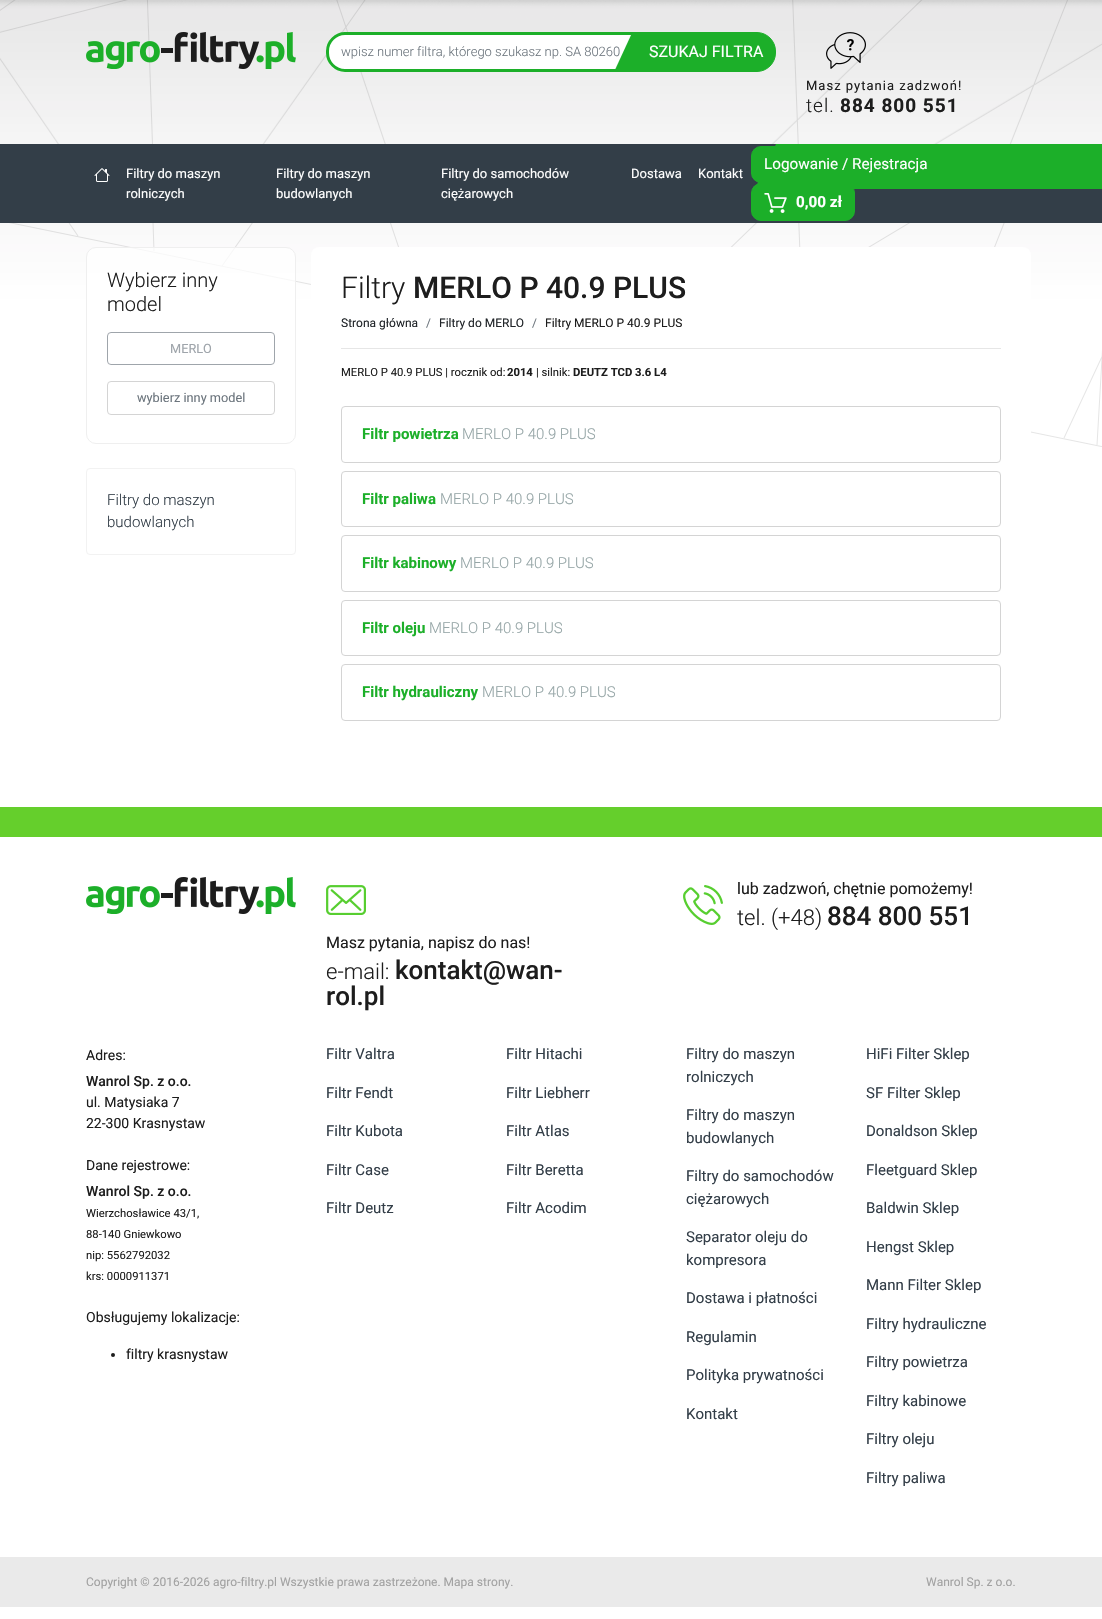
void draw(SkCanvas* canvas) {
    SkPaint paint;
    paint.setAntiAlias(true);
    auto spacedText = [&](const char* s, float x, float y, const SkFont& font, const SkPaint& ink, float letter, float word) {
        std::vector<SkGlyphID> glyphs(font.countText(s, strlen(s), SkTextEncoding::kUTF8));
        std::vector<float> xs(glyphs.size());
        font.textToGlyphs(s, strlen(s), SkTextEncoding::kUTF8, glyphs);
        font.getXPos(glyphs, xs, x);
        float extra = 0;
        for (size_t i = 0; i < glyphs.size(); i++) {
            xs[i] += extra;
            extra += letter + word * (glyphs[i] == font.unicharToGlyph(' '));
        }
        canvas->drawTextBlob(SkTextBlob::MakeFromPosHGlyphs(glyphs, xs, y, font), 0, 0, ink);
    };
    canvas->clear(0xFFFFFFFF);
    canvas->drawImageRect(SkImages::DeferredFromEncodedData(SkData::MakeFromFileName("img1.png")), SkRect::MakeXYWH(0, 0, 1102, 144), SkSamplingOptions());
    canvas->drawImageRect(SkImages::DeferredFromEncodedData(SkData::MakeFromFileName("img2.png")), SkRect::MakeXYWH(86, 32, 210, 37), SkSamplingOptions());
    paint.setColor(0xFFFFFFFF);
    canvas->drawPath(SkPathBuilder().moveTo(345, 32).lineTo(637, 32).lineTo(637, 72).lineTo(345, 72).cubicTo(334.5f, 72, 326, 63.5f, 326, 53).lineTo(326, 51).cubicTo(326, 40.5f, 334.5f, 32, 345, 32).close().detach(), paint);
    canvas->drawImageRect(SkImages::DeferredFromEncodedData(SkData::MakeFromFileName("img3.png")), SkRect::MakeXYWH(614, 35, 20, 34), SkSamplingOptions());
    paint.setStyle(SkPaint::kStroke_Style);
    paint.setStrokeWidth(3);
    paint.setColor(0xFF1CAF29);
    canvas->drawPath(SkPathBuilder().moveTo(345, 33.5f).lineTo(635.5f, 33.5f).lineTo(635.5f, 70.5f).lineTo(345, 70.5f).cubicTo(335.5f, 70.5f, 327.5f, 62.5f, 327.5f, 53).lineTo(327.5f, 51).cubicTo(327.5f, 41.5f, 335.5f, 33.5f, 345, 33.5f).close().detach(), paint);
    SkFont font1(fontMgr->matchFamilyStyle("Roboto", SkFontStyle(300, SkFontStyle::kNormal_Width, SkFontStyle::kUpright_Slant)), 13);
    font1.setSubpixel(true);
    paint.setStyle(SkPaint::kFill_Style);
    paint.setColor(0xFF6C757D);
    canvas->drawString("wpisz numer filtra, którego szukasz np. SA 80260", 341, 56, font1, paint);
    paint.setColor(0xFF1CAF29);
    canvas->drawPath(SkPathBuilder().moveTo(636.5f, 32.5f).lineTo(757, 32.5f).cubicTo(767, 32.5f, 775.5f, 41, 775.5f, 51).lineTo(775.5f, 53).cubicTo(775.5f, 63, 767, 71.5f, 757, 71.5f).lineTo(636.5f, 71.5f).close().detach(), paint);
    paint.setStyle(SkPaint::kStroke_Style);
    paint.setStrokeWidth(1);
    canvas->drawPath(SkPathBuilder().moveTo(636.5f, 32.5f).lineTo(757, 32.5f).cubicTo(767, 32.5f, 775.5f, 41, 775.5f, 51).lineTo(775.5f, 53).cubicTo(775.5f, 63, 767, 71.5f, 757, 71.5f).lineTo(636.5f, 71.5f).close().detach(), paint);
    SkFont font2(fontMgr->matchFamilyStyle("Roboto", SkFontStyle::Normal()), 16);
    font2.setSubpixel(true);
    paint.setStyle(SkPaint::kFill_Style);
    paint.setColor(0xFFFFFFFF);
    canvas->drawString("SZUKAJ FILTRA", 649, 57, font2, paint);
    canvas->drawImageRect(SkImages::DeferredFromEncodedData(SkData::MakeFromFileName("img4.png")), SkRect::MakeXYWH(826, 32, 40, 37), SkSamplingOptions());
    SkFont font3(fontMgr->matchFamilyStyle("Roboto", SkFontStyle::Normal()), 13);
    font3.setSubpixel(true);
    paint.setColor(0xFF1D1D1D);
    spacedText("Masz pytania zadzwoń!", 806, 90, font3, paint, 1, 0);
    SkFont font4(fontMgr->matchFamilyStyle("Roboto", SkFontStyle(300, SkFontStyle::kNormal_Width, SkFontStyle::kUpright_Slant)), 19);
    font4.setSubpixel(true);
    spacedText("tel.", 806, 112, font4, paint, 1, 0);
    SkFont font5(fontMgr->matchFamilyStyle("Roboto", SkFontStyle::Bold()), 19);
    font5.setSubpixel(true);
    spacedText("884 800 551", 840, 112, font5, paint, 1, 0);
    paint.setColor(0xFF333E48);
    canvas->drawRect(SkRect::MakeXYWH(0, 144, 1102, 79), paint);
    canvas->drawImageRect(SkImages::DeferredFromEncodedData(SkData::MakeFromFileName("img5.png")), SkRect::MakeXYWH(755, 144, 347, 45), SkSamplingOptions());
    canvas->drawImageRect(SkImages::DeferredFromEncodedData(SkData::MakeFromFileName("img6.png")), SkRect::MakeXYWH(94, 168, 16, 14), SkSamplingOptions());
    paint.setColor(0xFFFFFFFF);
    canvas->drawString("Filtry do maszyn", 126, 178, font3, paint);
    canvas->drawString("rolniczych", 126, 198, font3, paint);
    canvas->drawString("Filtry do maszyn", 276, 178, font3, paint);
    canvas->drawString("budowlanych", 276, 198, font3, paint);
    canvas->drawString("Filtry do samochodów", 441, 178, font3, paint);
    canvas->drawString("ciężarowych", 441, 198, font3, paint);
    canvas->drawString("Dostawa", 631, 178, font3, paint);
    canvas->drawString("Kontakt", 698, 178, font3, paint);
    paint.setColor(0xFF1CAF29);
    canvas->drawRoundRect(SkRect::MakeXYWH(751.5f, 146.5f, 187, 36), 9.5f, 9.5f, paint);
    paint.setStyle(SkPaint::kStroke_Style);
    canvas->drawRoundRect(SkRect::MakeXYWH(751.5f, 146.5f, 187, 36), 9.5f, 9.5f, paint);
    SkFont font6(fontMgr->matchFamilyStyle("Roboto", SkFontStyle::Normal()), 15.25f);
    font6.setSubpixel(true);
    paint.setStyle(SkPaint::kFill_Style);
    paint.setColor(0xFFFFFFFF);
    canvas->drawString("Logowanie / Rejestracja", 764, 169, font6, paint);
    paint.setColor(0xFF1CAF29);
    canvas->drawRoundRect(SkRect::MakeXYWH(751.5f, 183.5f, 103, 37), 9.5f, 9.5f, paint);
    paint.setStyle(SkPaint::kStroke_Style);
    canvas->drawRoundRect(SkRect::MakeXYWH(751.5f, 183.5f, 103, 37), 9.5f, 9.5f, paint);
    canvas->drawImageRect(SkImages::DeferredFromEncodedData(SkData::MakeFromFileName("img7.png")), SkRect::MakeXYWH(764, 193, 23, 20), SkSamplingOptions());
    SkFont font7(fontMgr->matchFamilyStyle("Roboto", SkFontStyle::Bold()), 15.25f);
    font7.setSubpixel(true);
    paint.setStyle(SkPaint::kFill_Style);
    paint.setColor(0xFFFFFFFF);
    canvas->drawString("0,00 zł", 796, 207, font7, paint);
    canvas->drawImageRect(SkImages::DeferredFromEncodedData(SkData::MakeFromFileName("img8.png")), SkRect::MakeXYWH(0, 223, 1102, 224), SkSamplingOptions());
    paint.setColor(0xBAFFFFFF);
    canvas->drawRoundRect(SkRect::MakeXYWH(86.5f, 247.5f, 209, 196), 9.5f, 9.5f, paint);
    paint.setStyle(SkPaint::kStroke_Style);
    paint.setColor(0xFFEFEFEF);
    canvas->drawRoundRect(SkRect::MakeXYWH(86.5f, 247.5f, 209, 196), 9.5f, 9.5f, paint);
    SkFont font8(fontMgr->matchFamilyStyle("Roboto", SkFontStyle(300, SkFontStyle::kNormal_Width, SkFontStyle::kUpright_Slant)), 20);
    font8.setSubpixel(true);
    paint.setStyle(SkPaint::kFill_Style);
    paint.setColor(0xFF1D1D1D);
    canvas->drawString("Wybierz inny", 107, 287, font8, paint);
    canvas->drawString("model", 107, 311, font8, paint);
    paint.setStyle(SkPaint::kStroke_Style);
    paint.setColor(0xFF9FA5AB);
    canvas->drawRoundRect(SkRect::MakeXYWH(107.5f, 332.5f, 167, 32), 3.5f, 3.5f, paint);
    SkFont font9(fontMgr->matchFamilyStyle("Roboto", SkFontStyle::Normal()), 12.75f);
    font9.setSubpixel(true);
    paint.setStyle(SkPaint::kFill_Style);
    canvas->drawString("MERLO", 170, 353, font9, paint);
    paint.setStyle(SkPaint::kStroke_Style);
    paint.setColor(0xFFD4D4D4);
    canvas->drawRoundRect(SkRect::MakeXYWH(107.5f, 381.5f, 167, 33), 3.5f, 3.5f, paint);
    paint.setStyle(SkPaint::kFill_Style);
    paint.setColor(0xFF6C757D);
    canvas->drawString("wybierz inny model", 137, 402, font9, paint);
    paint.setStyle(SkPaint::kStroke_Style);
    paint.setColor(0xFFF2F2F2);
    canvas->drawRoundRect(SkRect::MakeXYWH(86.5f, 468.5f, 209, 86), 3.5f, 3.5f, paint);
    SkFont font10(fontMgr->matchFamilyStyle("Roboto", SkFontStyle(300, SkFontStyle::kNormal_Width, SkFontStyle::kUpright_Slant)), 15);
    font10.setSubpixel(true);
    paint.setStyle(SkPaint::kFill_Style);
    paint.setColor(0xFF333E48);
    canvas->drawString("Filtry do maszyn", 107, 505, font10, paint);
    canvas->drawString("budowlanych", 107, 527, font10, paint);
    paint.setColor(0xFFFFFFFF);
    canvas->drawRoundRect(SkRect::MakeXYWH(311, 247, 720, 505), 8, 8, paint);
    SkFont font11(fontMgr->matchFamilyStyle("Roboto", SkFontStyle(300, SkFontStyle::kNormal_Width, SkFontStyle::kUpright_Slant)), 30);
    font11.setSubpixel(true);
    paint.setColor(0xFF1D1D1D);
    canvas->drawString("Filtry", 341, 298, font11, paint);
    SkFont font12(fontMgr->matchFamilyStyle("Roboto", SkFontStyle(500, SkFontStyle::kNormal_Width, SkFontStyle::kUpright_Slant)), 30);
    font12.setSubpixel(true);
    canvas->drawString("MERLO P 40.9 PLUS", 413, 298, font12, paint);
    SkFont font13(fontMgr->matchFamilyStyle("Roboto", SkFontStyle::Normal()), 12);
    font13.setSubpixel(true);
    paint.setColor(0xFF212529);
    canvas->drawString("Strona główna", 341, 327, font13, paint);
    paint.setColor(0xFF6C757D);
    canvas->drawString("/", 426, 327, font13, paint);
    paint.setColor(0xFF212529);
    canvas->drawString("Filtry do MERLO", 439, 327, font13, paint);
    paint.setColor(0xFF6C757D);
    canvas->drawString("/", 532, 327, font13, paint);
    paint.setColor(0xFF1D1D1D);
    canvas->drawString("Filtry MERLO P 40.9 PLUS", 545, 327, font13, paint);
    paint.setColor(0xFFE6E6E6);
    canvas->drawRect(SkRect::MakeXYWH(341, 348, 660, 1), paint);
    SkFont font14(fontMgr->matchFamilyStyle("Roboto", SkFontStyle::Normal()), 11.25f);
    font14.setSubpixel(true);
    paint.setColor(0xFF1D1D1D);
    canvas->drawString("MERLO P 40.9 PLUS | rocznik od:", 341, 376, font14, paint);
    SkFont font15(fontMgr->matchFamilyStyle("Roboto", SkFontStyle::Bold()), 11.25f);
    font15.setSubpixel(true);
    canvas->drawString("2014", 507, 376, font15, paint);
    canvas->drawString("| silnik:", 536, 376, font14, paint);
    canvas->drawString("DEUTZ TCD 3.6 L4", 573, 376, font15, paint);
    paint.setStyle(SkPaint::kStroke_Style);
    paint.setColor(0xFFD4D4D4);
    canvas->drawRoundRect(SkRect::MakeXYWH(341.5f, 406.5f, 659, 56), 3.5f, 3.5f, paint);
    SkFont font16(fontMgr->matchFamilyStyle("Roboto", SkFontStyle::Bold()), 15);
    font16.setSubpixel(true);
    paint.setStyle(SkPaint::kFill_Style);
    paint.setColor(0xFF1CAF29);
    canvas->drawString("Filtr powietrza", 362, 439, font16, paint);
    paint.setColor(0xFF95A5A6);
    canvas->drawString("MERLO P 40.9 PLUS", 462, 439, font10, paint);
    paint.setStyle(SkPaint::kStroke_Style);
    paint.setColor(0xFFD4D4D4);
    canvas->drawRoundRect(SkRect::MakeXYWH(341.5f, 471.5f, 659, 55), 3.5f, 3.5f, paint);
    paint.setStyle(SkPaint::kFill_Style);
    paint.setColor(0xFF1CAF29);
    canvas->drawString("Filtr paliwa", 362, 504, font16, paint);
    paint.setColor(0xFF95A5A6);
    canvas->drawString("MERLO P 40.9 PLUS", 440, 504, font10, paint);
    paint.setStyle(SkPaint::kStroke_Style);
    paint.setColor(0xFFD4D4D4);
    canvas->drawRoundRect(SkRect::MakeXYWH(341.5f, 535.5f, 659, 56), 3.5f, 3.5f, paint);
    paint.setStyle(SkPaint::kFill_Style);
    paint.setColor(0xFF1CAF29);
    canvas->drawString("Filtr kabinowy", 362, 568, font16, paint);
    paint.setColor(0xFF95A5A6);
    canvas->drawString("MERLO P 40.9 PLUS", 460, 568, font10, paint);
    paint.setStyle(SkPaint::kStroke_Style);
    paint.setColor(0xFFD4D4D4);
    canvas->drawRoundRect(SkRect::MakeXYWH(341.5f, 600.5f, 659, 55), 3.5f, 3.5f, paint);
    paint.setStyle(SkPaint::kFill_Style);
    paint.setColor(0xFF1CAF29);
    canvas->drawString("Filtr oleju", 362, 633, font16, paint);
    paint.setColor(0xFF95A5A6);
    canvas->drawString("MERLO P 40.9 PLUS", 429, 633, font10, paint);
    paint.setStyle(SkPaint::kStroke_Style);
    paint.setColor(0xFFD4D4D4);
    canvas->drawRoundRect(SkRect::MakeXYWH(341.5f, 664.5f, 659, 56), 3.5f, 3.5f, paint);
    paint.setStyle(SkPaint::kFill_Style);
    paint.setColor(0xFF1CAF29);
    canvas->drawString("Filtr hydrauliczny", 362, 697, font16, paint);
    paint.setColor(0xFF95A5A6);
    canvas->drawString("MERLO P 40.9 PLUS", 482, 697, font10, paint);
    paint.setColor(0xFF65CF2C);
    canvas->drawRect(SkRect::MakeXYWH(0, 807, 1102, 30), paint);
    canvas->drawImageRect(SkImages::DeferredFromEncodedData(SkData::MakeFromFileName("img9.png")), SkRect::MakeXYWH(86, 877, 210, 37), SkSamplingOptions());
    canvas->drawImageRect(SkImages::DeferredFromEncodedData(SkData::MakeFromFileName("img10.png")), SkRect::MakeXYWH(683, 885, 40, 40), SkSamplingOptions());
    paint.setColor(0xFF1D1D1D);
    canvas->drawString("lub zadzwoń, chętnie pomożemy!", 737, 894, font2, paint);
    SkFont font17(fontMgr->matchFamilyStyle("Roboto", SkFontStyle(300, SkFontStyle::kNormal_Width, SkFontStyle::kUpright_Slant)), 22);
    font17.setSubpixel(true);
    canvas->drawString("tel. (+48)", 737, 925, font17, paint);
    SkFont font18(fontMgr->matchFamilyStyle("Roboto", SkFontStyle(500, SkFontStyle::kNormal_Width, SkFontStyle::kUpright_Slant)), 26);
    font18.setSubpixel(true);
    canvas->drawString("884 800 551", 827, 925, font18, paint);
    canvas->drawImageRect(SkImages::DeferredFromEncodedData(SkData::MakeFromFileName("img11.png")), SkRect::MakeXYWH(326, 885, 40, 30), SkSamplingOptions());
    canvas->drawString("Masz pytania, napisz do nas!", 326, 948, font2, paint);
    canvas->drawString("e-mail:", 326, 979, font17, paint);
    canvas->drawString("kontakt@wan-", 395, 979, font18, paint);
    canvas->drawString("rol.pl", 326, 1005, font18, paint);
    SkFont font19(fontMgr->matchFamilyStyle("Roboto", SkFontStyle::Normal()), 14);
    font19.setSubpixel(true);
    canvas->drawString("Adres:", 86, 1060, font19, paint);
    SkFont font20(fontMgr->matchFamilyStyle("Roboto", SkFontStyle(500, SkFontStyle::kNormal_Width, SkFontStyle::kUpright_Slant)), 14);
    font20.setSubpixel(true);
    canvas->drawString("Wanrol Sp. z o.o.", 86, 1086, font20, paint);
    canvas->drawString("ul. Matysiaka 7", 86, 1107, font19, paint);
    canvas->drawString("22-300 Krasnystaw", 86, 1128, font19, paint);
    canvas->drawString("Dane rejestrowe:", 86, 1170, font19, paint);
    canvas->drawString("Wanrol Sp. z o.o.", 86, 1196, font20, paint);
    canvas->drawString("Wierzchosławice 43/1,", 86, 1217, font14, paint);
    canvas->drawString("88-140 Gniewkowo", 86, 1238, font14, paint);
    canvas->drawString("nip: 5562792032", 86, 1259, font14, paint);
    canvas->drawString("krs: 0000911371", 86, 1280, font14, paint);
    canvas->drawString("Obsługujemy lokalizacje:", 86, 1322, font19, paint);
    canvas->drawCircle(113, 1355, 2, paint);
    canvas->drawString("filtry krasnystaw", 126, 1359, font19, paint);
    SkFont font21(fontMgr->matchFamilyStyle("Roboto", SkFontStyle::Normal()), 15);
    font21.setSubpixel(true);
    paint.setColor(0xFF333E48);
    canvas->drawString("Filtr Valtra", 326, 1059, font21, paint);
    canvas->drawString("Filtr Fendt", 326, 1098, font21, paint);
    canvas->drawString("Filtr Kubota", 326, 1136, font21, paint);
    canvas->drawString("Filtr Case", 326, 1175, font21, paint);
    canvas->drawString("Filtr Deutz", 326, 1213, font21, paint);
    canvas->drawString("Filtr Hitachi", 506, 1059, font21, paint);
    canvas->drawString("Filtr Liebherr", 506, 1098, font21, paint);
    canvas->drawString("Filtr Atlas", 506, 1136, font21, paint);
    canvas->drawString("Filtr Beretta", 506, 1175, font21, paint);
    canvas->drawString("Filtr Acodim", 506, 1213, font21, paint);
    canvas->drawString("Filtry do maszyn", 686, 1059, font21, paint);
    canvas->drawString("rolniczych", 686, 1082, font21, paint);
    canvas->drawString("Filtry do maszyn", 686, 1120, font21, paint);
    canvas->drawString("budowlanych", 686, 1143, font21, paint);
    canvas->drawString("Filtry do samochodów", 686, 1181, font21, paint);
    canvas->drawString("ciężarowych", 686, 1204, font21, paint);
    canvas->drawString("Separator oleju do", 686, 1242, font21, paint);
    canvas->drawString("kompresora", 686, 1265, font21, paint);
    canvas->drawString("Dostawa i płatności", 686, 1303, font21, paint);
    canvas->drawString("Regulamin", 686, 1342, font21, paint);
    canvas->drawString("Polityka prywatności", 686, 1380, font21, paint);
    canvas->drawString("Kontakt", 686, 1419, font21, paint);
    canvas->drawString("HiFi Filter Sklep", 866, 1059, font21, paint);
    canvas->drawString("SF Filter Sklep", 866, 1098, font21, paint);
    canvas->drawString("Donaldson Sklep", 866, 1136, font21, paint);
    canvas->drawString("Fleetguard Sklep", 866, 1175, font21, paint);
    canvas->drawString("Baldwin Sklep", 866, 1213, font21, paint);
    canvas->drawString("Hengst Sklep", 866, 1252, font21, paint);
    canvas->drawString("Mann Filter Sklep", 866, 1290, font21, paint);
    canvas->drawString("Filtry hydrauliczne", 866, 1329, font21, paint);
    canvas->drawString("Filtry powietrza", 866, 1367, font21, paint);
    canvas->drawString("Filtry kabinowe", 866, 1406, font21, paint);
    canvas->drawString("Filtry oleju", 866, 1444, font21, paint);
    canvas->drawString("Filtry paliwa", 866, 1483, font21, paint);
    paint.setColor(0xFFEAEAEA);
    canvas->drawRect(SkRect::MakeXYWH(0, 1557, 1102, 50), paint);
    paint.setColor(0xFFA2A2A2);
    canvas->drawString("Copyright © 2016-2026 agro-filtry.pl Wszystkie prawa zastrzeżone. Mapa strony.", 86, 1586, font13, paint);
    canvas->drawString("Wanrol Sp. z o.o.", 926, 1586, font13, paint);
}
